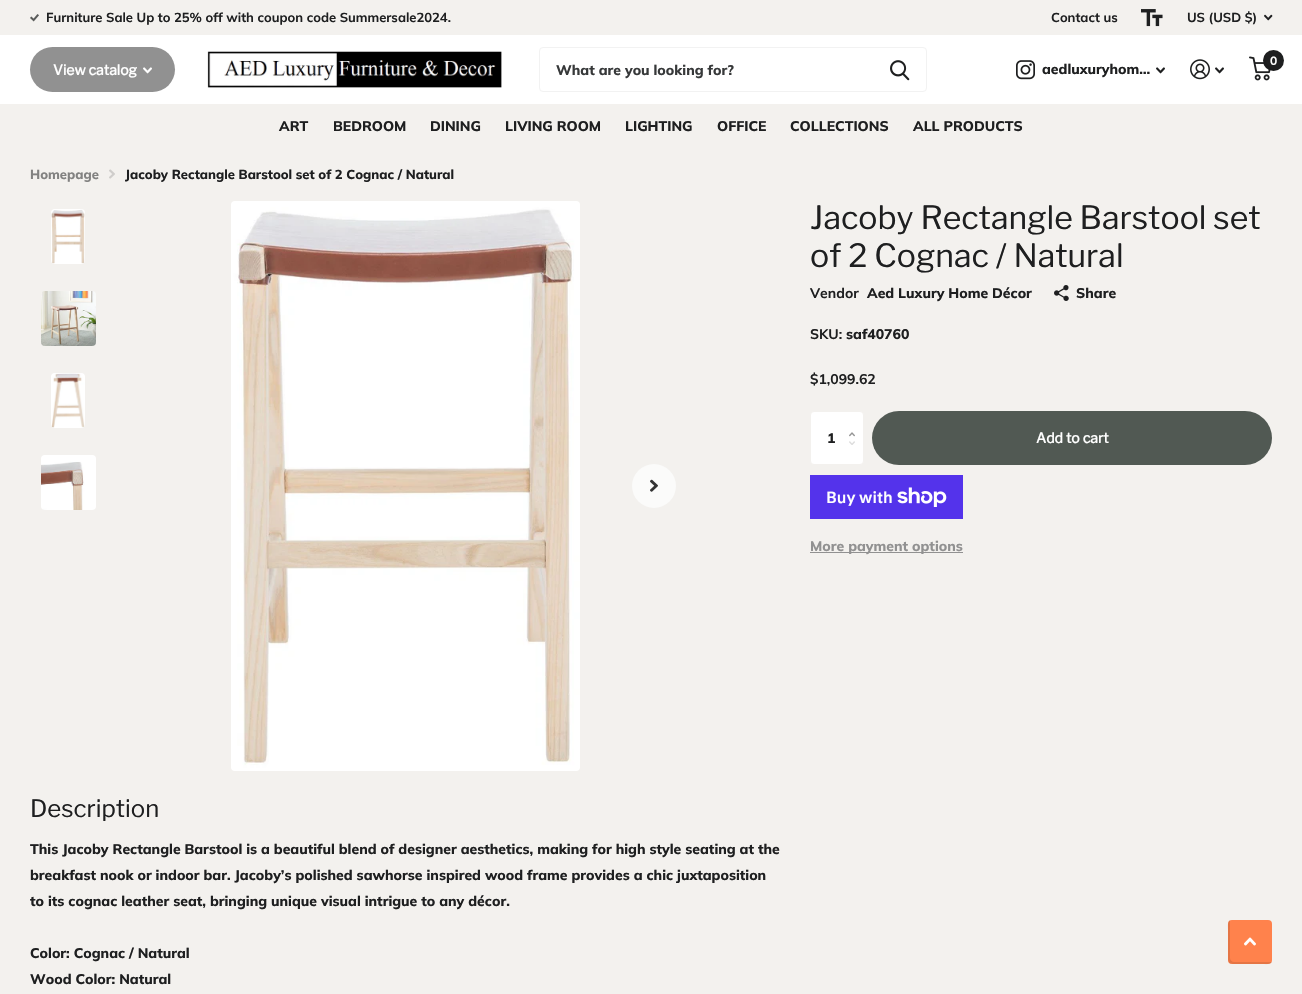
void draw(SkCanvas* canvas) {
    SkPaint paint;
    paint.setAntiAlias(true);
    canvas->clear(0xFFF3F1EE);
    canvas->drawImageRect(SkImages::DeferredFromEncodedData(SkData::MakeFromFileName("img1.png")), SkRect::MakeXYWH(30, 14, 9, 8), SkSamplingOptions());
    SkFont font1(fontMgr->matchFamilyStyle("Muli", SkFontStyle::Bold()), 13);
    font1.setSubpixel(true);
    paint.setColor(0xFF1E1F20);
    canvas->drawString("Furniture Sale Up to 25% off with coupon code Summersale2024.", 46, 22, font1, paint);
    canvas->drawString("Contact us", 1051, 22, font1, paint);
    canvas->drawImageRect(SkImages::DeferredFromEncodedData(SkData::MakeFromFileName("img2.png")), SkRect::MakeXYWH(1141, 9, 22, 18), SkSamplingOptions());
    canvas->drawString("US (USD $)", 1187, 22, font1, paint);
    canvas->drawImageRect(SkImages::DeferredFromEncodedData(SkData::MakeFromFileName("img3.png")), SkRect::MakeXYWH(1264, 14, 9, 7), SkSamplingOptions());
    paint.setColor(0xFFFFFFFF);
    canvas->drawRect(SkRect::MakeXYWH(0, 35, 1302, 69), paint);
    paint.setColor(0xFF919191);
    canvas->drawRoundRect(SkRect::MakeXYWH(30, 47, 145, 45), 22.5f, 22.5f, paint);
    SkFont font2(fontMgr->matchFamilyStyle("Libre Franklin", SkFontStyle::Bold()), 14);
    font2.setSubpixel(true);
    paint.setColor(0xFFFFFFFF);
    canvas->drawString("View catalog", 53, 75, font2, paint);
    canvas->drawImageRect(SkImages::DeferredFromEncodedData(SkData::MakeFromFileName("img4.png")), SkRect::MakeXYWH(143, 67, 9, 7), SkSamplingOptions());
    canvas->drawImageRect(SkImages::DeferredFromEncodedData(SkData::MakeFromFileName("img5.png")), SkRect::MakeXYWH(207, 51, 295, 37), SkSamplingOptions());
    paint.setStyle(SkPaint::kStroke_Style);
    paint.setStrokeWidth(1);
    paint.setColor(0xFFF2F2F2);
    canvas->drawRoundRect(SkRect::MakeXYWH(539.5f, 47.5f, 387, 44), 3.5f, 3.5f, paint);
    SkFont font3(fontMgr->matchFamilyStyle("Muli", SkFontStyle(800, SkFontStyle::kNormal_Width, SkFontStyle::kUpright_Slant)), 14);
    font3.setSubpixel(true);
    paint.setStyle(SkPaint::kFill_Style);
    paint.setColor(0xFF37393A);
    canvas->drawString("What are you looking for?", 556, 75, font3, paint);
    canvas->drawImageRect(SkImages::DeferredFromEncodedData(SkData::MakeFromFileName("img6.png")), SkRect::MakeXYWH(890, 60, 20, 21), SkSamplingOptions());
    canvas->drawImageRect(SkImages::DeferredFromEncodedData(SkData::MakeFromFileName("img7.png")), SkRect::MakeXYWH(1016, 60, 19, 20), SkSamplingOptions());
    paint.setColor(0xFF1E1F20);
    canvas->drawString("aedluxuryhom…", 1042, 74, font3, paint);
    canvas->drawImageRect(SkImages::DeferredFromEncodedData(SkData::MakeFromFileName("img8.png")), SkRect::MakeXYWH(1156, 67, 9, 7), SkSamplingOptions());
    canvas->drawImageRect(SkImages::DeferredFromEncodedData(SkData::MakeFromFileName("img9.png")), SkRect::MakeXYWH(1190, 59, 20, 21), SkSamplingOptions());
    canvas->drawImageRect(SkImages::DeferredFromEncodedData(SkData::MakeFromFileName("img8.png")), SkRect::MakeXYWH(1215, 67, 9, 7), SkSamplingOptions());
    canvas->drawImageRect(SkImages::DeferredFromEncodedData(SkData::MakeFromFileName("img10.png")), SkRect::MakeXYWH(1249, 56, 22, 25), SkSamplingOptions());
    canvas->drawCircle(1273.5f, 60.5f, 10.5f, paint);
    paint.setColor(0x1A000000);
    canvas->drawPath(SkPathBuilder().moveTo(1281.5f, 67.5f).cubicTo(1272, 73.5f, 1260.5f, 61, 1268, 51.5f).cubicTo(1262.5f, 55.5f, 1261.5f, 63, 1266, 68).cubicTo(1270.5f, 72, 1277.5f, 72, 1281.5f, 67.5f).close().detach(), paint);
    SkFont font4(fontMgr->matchFamilyStyle("Muli", SkFontStyle::Bold()), 12);
    font4.setSubpixel(true);
    paint.setColor(0xFFFFFFFF);
    canvas->drawString("0", 1270, 65, font4, paint);
    paint.setColor(0xFF1E1F20);
    canvas->drawString("ART", 279, 131, font3, paint);
    canvas->drawString("BEDROOM", 333, 131, font3, paint);
    canvas->drawString("DINING", 430, 131, font3, paint);
    canvas->drawString("LIVING ROOM", 505, 131, font3, paint);
    canvas->drawString("LIGHTING", 625, 131, font3, paint);
    canvas->drawString("OFFICE", 717, 131, font3, paint);
    canvas->drawString("COLLECTIONS", 790, 131, font3, paint);
    canvas->drawString("ALL PRODUCTS", 913, 131, font3, paint);
    SkFont font5(fontMgr->matchFamilyStyle("Muli", SkFontStyle(800, SkFontStyle::kNormal_Width, SkFontStyle::kUpright_Slant)), 13);
    font5.setSubpixel(true);
    paint.setColor(0xFF828281);
    canvas->drawString("Homepage", 30, 179, font5, paint);
    canvas->drawImageRect(SkImages::DeferredFromEncodedData(SkData::MakeFromFileName("img11.png")), SkRect::MakeXYWH(109, 169, 6, 10), SkSamplingOptions());
    paint.setColor(0xFF1E1F20);
    canvas->drawString("Jacoby Rectangle Barstool set of 2 Cognac / Natural", 125, 179, font5, paint);
    SkFont font6(fontMgr->matchFamilyStyle("Libre Franklin", SkFontStyle::Normal()), 32);
    font6.setSubpixel(true);
    canvas->drawString("Jacoby Rectangle Barstool set", 810, 229, font6, paint);
    canvas->drawString("of 2 Cognac / Natural", 810, 267, font6, paint);
    SkFont font7(fontMgr->matchFamilyStyle("Muli", SkFontStyle::Bold()), 14);
    font7.setSubpixel(true);
    canvas->drawString("Vendor", 810, 298, font7, paint);
    canvas->drawString("Aed Luxury Home Décor", 867, 298, font3, paint);
    canvas->drawImageRect(SkImages::DeferredFromEncodedData(SkData::MakeFromFileName("img12.png")), SkRect::MakeXYWH(1054, 285, 15, 16), SkSamplingOptions());
    canvas->drawString("Share", 1076, 298, font3, paint);
    canvas->drawString("SKU:", 810, 339, font7, paint);
    canvas->drawString("saf40760", 846, 339, font3, paint);
    canvas->drawString("$1,099.62", 810, 384, font7, paint);
    paint.setColor(0xFFFFFFFF);
    canvas->drawRoundRect(SkRect::MakeXYWH(810.5f, 411.5f, 53, 53), 3.5f, 3.5f, paint);
    paint.setStyle(SkPaint::kStroke_Style);
    paint.setColor(0xFFF3F1EE);
    canvas->drawRoundRect(SkRect::MakeXYWH(810.5f, 411.5f, 53, 53), 3.5f, 3.5f, paint);
    paint.setStyle(SkPaint::kFill_Style);
    paint.setColor(0xFF1E1F20);
    canvas->drawString("1", 827, 443, font3, paint);
    canvas->drawImageRect(SkImages::DeferredFromEncodedData(SkData::MakeFromFileName("img13.png")), SkRect::MakeXYWH(849, 432, 6, 5), SkSamplingOptions());
    canvas->drawImageRect(SkImages::DeferredFromEncodedData(SkData::MakeFromFileName("img14.png")), SkRect::MakeXYWH(849, 441, 6, 4), SkSamplingOptions());
    paint.setColor(0xFF515953);
    canvas->drawRoundRect(SkRect::MakeXYWH(872, 411, 400, 54), 27, 27, paint);
    paint.setColor(0xFFFFFFFF);
    canvas->drawString("Add to cart", 1036, 443, font2, paint);
    paint.setColor(0xFF5433EB);
    canvas->drawRect(SkRect::MakeXYWH(810, 475, 153, 44), paint);
    SkFont font8(fontMgr->matchFamilyStyle("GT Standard", SkFontStyle(600, SkFontStyle::kNormal_Width, SkFontStyle::kUpright_Slant)), 16);
    font8.setSubpixel(true);
    paint.setColor(0xFFFFFFFF);
    canvas->drawString("Buy with", 826, 503, font8, paint);
    canvas->drawImageRect(SkImages::DeferredFromEncodedData(SkData::MakeFromFileName("img15.png")), SkRect::MakeXYWH(897, 487, 50, 20), SkSamplingOptions());
    paint.setColor(0xFF919191);
    canvas->drawRect(SkRect::MakeXYWH(810, 552, 153, 1), paint);
    canvas->drawString("More payment options", 810, 551, font3, paint);
    canvas->drawImageRect(SkImages::DeferredFromEncodedData(SkData::MakeFromFileName("img16.png")), SkRect::MakeXYWH(231, 201, 349, 570), SkSamplingOptions());
    canvas->drawImageRect(SkImages::DeferredFromEncodedData(SkData::MakeFromFileName("img17.png")), SkRect::MakeXYWH(51, 209, 34, 55), SkSamplingOptions());
    canvas->drawImageRect(SkImages::DeferredFromEncodedData(SkData::MakeFromFileName("img18.png")), SkRect::MakeXYWH(41, 291, 55, 55), SkSamplingOptions());
    canvas->drawImageRect(SkImages::DeferredFromEncodedData(SkData::MakeFromFileName("img19.png")), SkRect::MakeXYWH(51, 373, 34, 55), SkSamplingOptions());
    canvas->drawImageRect(SkImages::DeferredFromEncodedData(SkData::MakeFromFileName("img20.png")), SkRect::MakeXYWH(41, 455, 55, 55), SkSamplingOptions());
    paint.setColor(0xFFFBFBFA);
    canvas->drawCircle(654, 486, 22, paint);
    canvas->drawImageRect(SkImages::DeferredFromEncodedData(SkData::MakeFromFileName("img21.png")), SkRect::MakeXYWH(650, 479, 8, 13), SkSamplingOptions());
    SkFont font9(fontMgr->matchFamilyStyle("Libre Franklin", SkFontStyle::Normal()), 24);
    font9.setSubpixel(true);
    paint.setColor(0xFF1E1F20);
    canvas->drawString("Description", 30, 817, font9, paint);
    canvas->drawString("This Jacoby Rectangle Barstool is a beautiful blend of designer aesthetics, making for high style seating at the", 30, 854, font3, paint);
    canvas->drawString("breakfast nook or indoor bar. Jacoby’s polished sawhorse inspired wood frame provides a chic juxtaposition", 30, 880, font3, paint);
    canvas->drawString("to its cognac leather seat, bringing unique visual intrigue to any décor.", 30, 906, font3, paint);
    canvas->drawString("Color: Cognac / Natural", 30, 958, font3, paint);
    canvas->drawString("Wood Color: Natural", 30, 984, font3, paint);
    paint.setColor(0xFFFF824C);
    canvas->drawRoundRect(SkRect::MakeXYWH(1228, 920, 44, 44), 4, 4, paint);
    paint.setColor(0x1A000000);
    canvas->drawPath(SkPathBuilder().moveTo(1230, 920).cubicTo(1227, 922, 1228, 927, 1228, 930).lineTo(1228, 954).cubicTo(1228, 964, 1228, 964, 1238, 964).lineTo(1262, 964).cubicTo(1265, 964, 1270, 965, 1272, 962).lineTo(1270, 962).lineTo(1234, 962).cubicTo(1232, 962, 1230, 960, 1230, 958).lineTo(1230, 922).close().detach(), paint);
    canvas->drawImageRect(SkImages::DeferredFromEncodedData(SkData::MakeFromFileName("img22.png")), SkRect::MakeXYWH(1244, 937, 12, 9), SkSamplingOptions());
}
